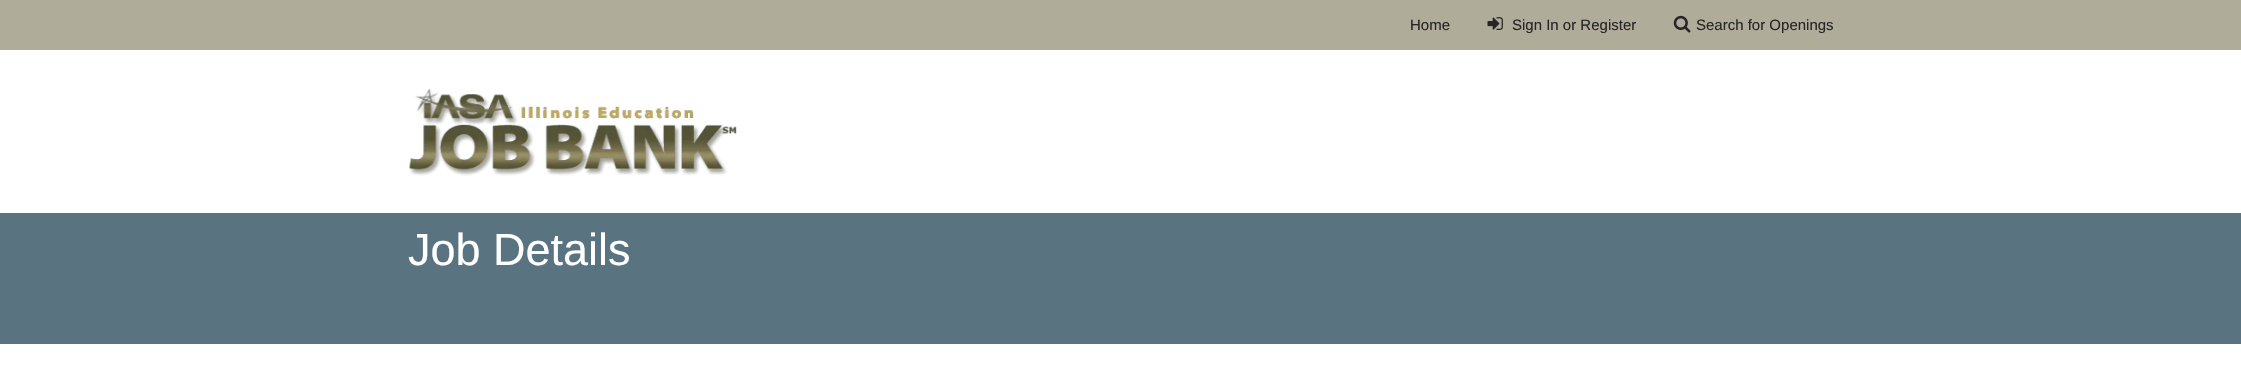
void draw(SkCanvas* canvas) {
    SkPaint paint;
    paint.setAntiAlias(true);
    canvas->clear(0xFFFFFFFF);
    paint.setColor(0xFFAFAC9A);
    canvas->drawRect(SkRect::MakeXYWH(0, 0, 2241, 50), paint);
    SkFont font1(fontMgr->matchFamilyStyle("Arimo", SkFontStyle::Normal()), 15);
    font1.setSubpixel(true);
    paint.setColor(0xFF262626);
    canvas->drawString("Home", 1410, 30, font1, paint);
    canvas->drawImageRect(SkImages::DeferredFromEncodedData(SkData::MakeFromFileName("img1.png")), SkRect::MakeXYWH(1487, 17, 16, 13), SkSamplingOptions());
    canvas->drawString("Sign In or Register", 1512, 30, font1, paint);
    canvas->drawImageRect(SkImages::DeferredFromEncodedData(SkData::MakeFromFileName("img2.png")), SkRect::MakeXYWH(1673, 15, 18, 18), SkSamplingOptions());
    canvas->drawString("Search for Openings", 1696, 30, font1, paint);
    canvas->drawImageRect(SkImages::DeferredFromEncodedData(SkData::MakeFromFileName("img3.png")), SkRect::MakeXYWH(409, 88, 328, 88), SkSamplingOptions());
    paint.setColor(0xFF597380);
    canvas->drawRect(SkRect::MakeXYWH(0, 213, 2241, 131), paint);
    SkFont font2(fontMgr->matchFamilyStyle("Arimo", SkFontStyle::Normal()), 45);
    font2.setSubpixel(true);
    paint.setColor(0xFFFFFFFF);
    canvas->drawString("Job Details", 408, 265, font2, paint);
}
